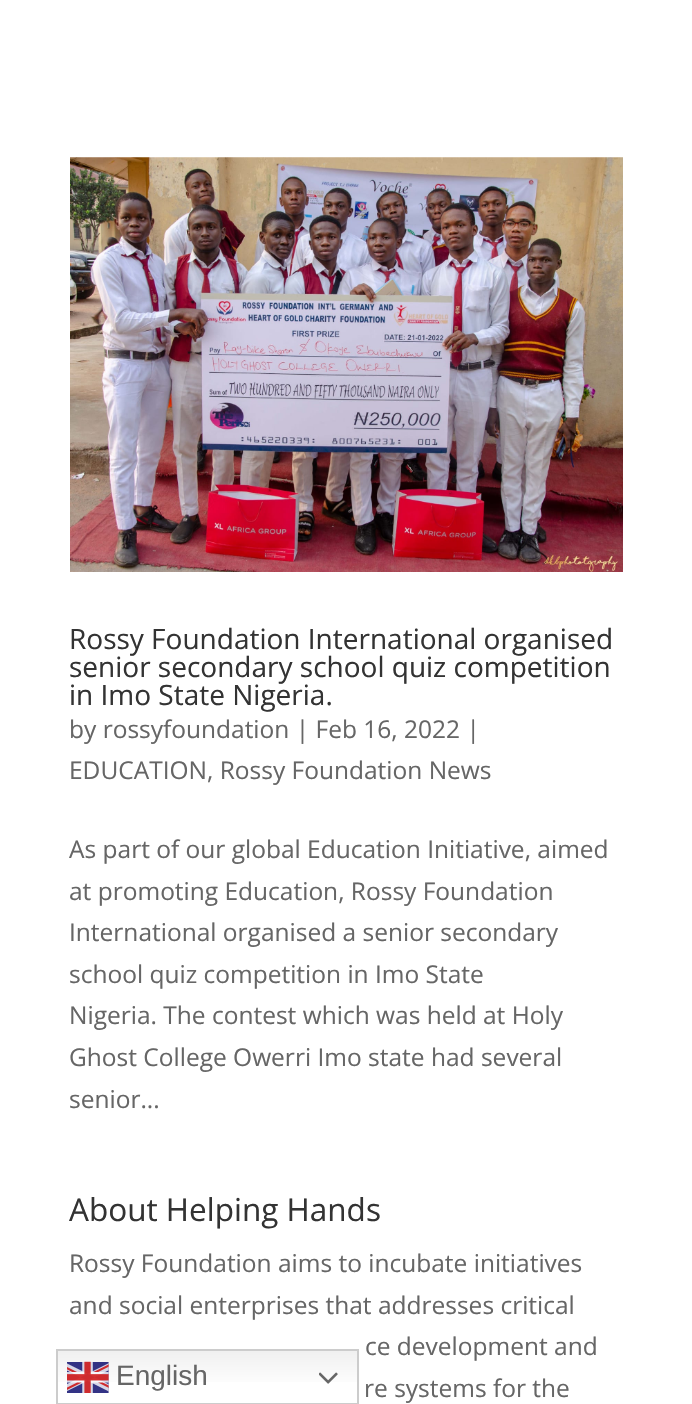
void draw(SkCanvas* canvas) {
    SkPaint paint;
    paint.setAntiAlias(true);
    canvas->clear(0xFFFFFFFF);
    canvas->drawImageRect(SkImages::DeferredFromEncodedData(SkData::MakeFromFileName("img1.png")), SkRect::MakeXYWH(70, 157, 553, 415), SkSamplingOptions());
    SkFont font1(fontMgr->matchFamilyStyle("Open Sans", SkFontStyle::Normal()), 28);
    font1.setSubpixel(true);
    paint.setColor(0xFF333333);
    canvas->drawString("Rossy Foundation International organised", 69, 649, font1, paint);
    canvas->drawString("senior secondary school quiz competition", 69, 677, font1, paint);
    canvas->drawString("in Imo State Nigeria.", 69, 705, font1, paint);
    SkFont font2(fontMgr->matchFamilyStyle("Open Sans", SkFontStyle::Normal()), 24.5f);
    font2.setSubpixel(true);
    paint.setColor(0xFF666666);
    canvas->drawString("by rossyfoundation | Feb 16, 2022 |", 69, 738, font2, paint);
    canvas->drawString("EDUCATION, Rossy Foundation News", 69, 779, font2, paint);
    canvas->drawString("As part of our global Education Initiative, aimed", 69, 858, font2, paint);
    canvas->drawString("at promoting Education, Rossy Foundation", 69, 900, font2, paint);
    canvas->drawString("International organised a senior secondary", 69, 941, font2, paint);
    canvas->drawString("school quiz competition in Imo State", 69, 983, font2, paint);
    canvas->drawString("Nigeria. The contest which was held at Holy", 69, 1024, font2, paint);
    canvas->drawString("Ghost College Owerri Imo state had several", 69, 1066, font2, paint);
    canvas->drawString("senior...", 69, 1108, font2, paint);
    SkFont font3(fontMgr->matchFamilyStyle("Open Sans", SkFontStyle::Normal()), 31.5f);
    font3.setSubpixel(true);
    paint.setColor(0xFF333333);
    canvas->drawString("About Helping Hands", 69, 1221, font3, paint);
    paint.setColor(0xFF666666);
    canvas->drawString("Rossy Foundation aims to incubate initiatives", 69, 1272, font2, paint);
    canvas->drawString("and social enterprises that addresses critical", 69, 1314, font2, paint);
    canvas->drawString("ce development and", 365, 1355, font2, paint);
    canvas->drawString("re systems for the", 364, 1397, font2, paint);
    {
        const SkColor colors[] = {0xFFEFEFEF, 0xFFFFFFFF};
        const float stops[] = {0, 0.7f};
        const SkPoint ends[] = {{207, 1349}, {207, 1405}};
        paint.setShader(SkGradientShader::MakeLinear(ends, colors, stops, 2, SkTileMode::kClamp));
        paint.setAlpha(255);
    }
    canvas->drawRect(SkRect::MakeXYWH(58, 1351, 299, 31), paint);
    paint.setStyle(SkPaint::kStroke_Style);
    paint.setStrokeWidth(2);
    paint.setShader(nullptr);
    paint.setColor(0xFFCCCCCC);
    canvas->drawRect(SkRect::MakeXYWH(57, 1350, 301, 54), paint);
    canvas->drawImageRect(SkImages::DeferredFromEncodedData(SkData::MakeFromFileName("img2.png")), SkRect::MakeXYWH(67, 1361, 42, 32), SkSamplingOptions());
    SkFont font4(fontMgr->matchFamilyStyle("Liberation Sans", SkFontStyle::Normal()), 28);
    font4.setSubpixel(true);
    paint.setStyle(SkPaint::kFill_Style);
    paint.setColor(0xFF666666);
    canvas->drawString("English", 116, 1385, font4, paint);
    canvas->drawImageRect(SkImages::DeferredFromEncodedData(SkData::MakeFromFileName("img3.png")), SkRect::MakeXYWH(319, 1372, 19, 12), SkSamplingOptions());
}
